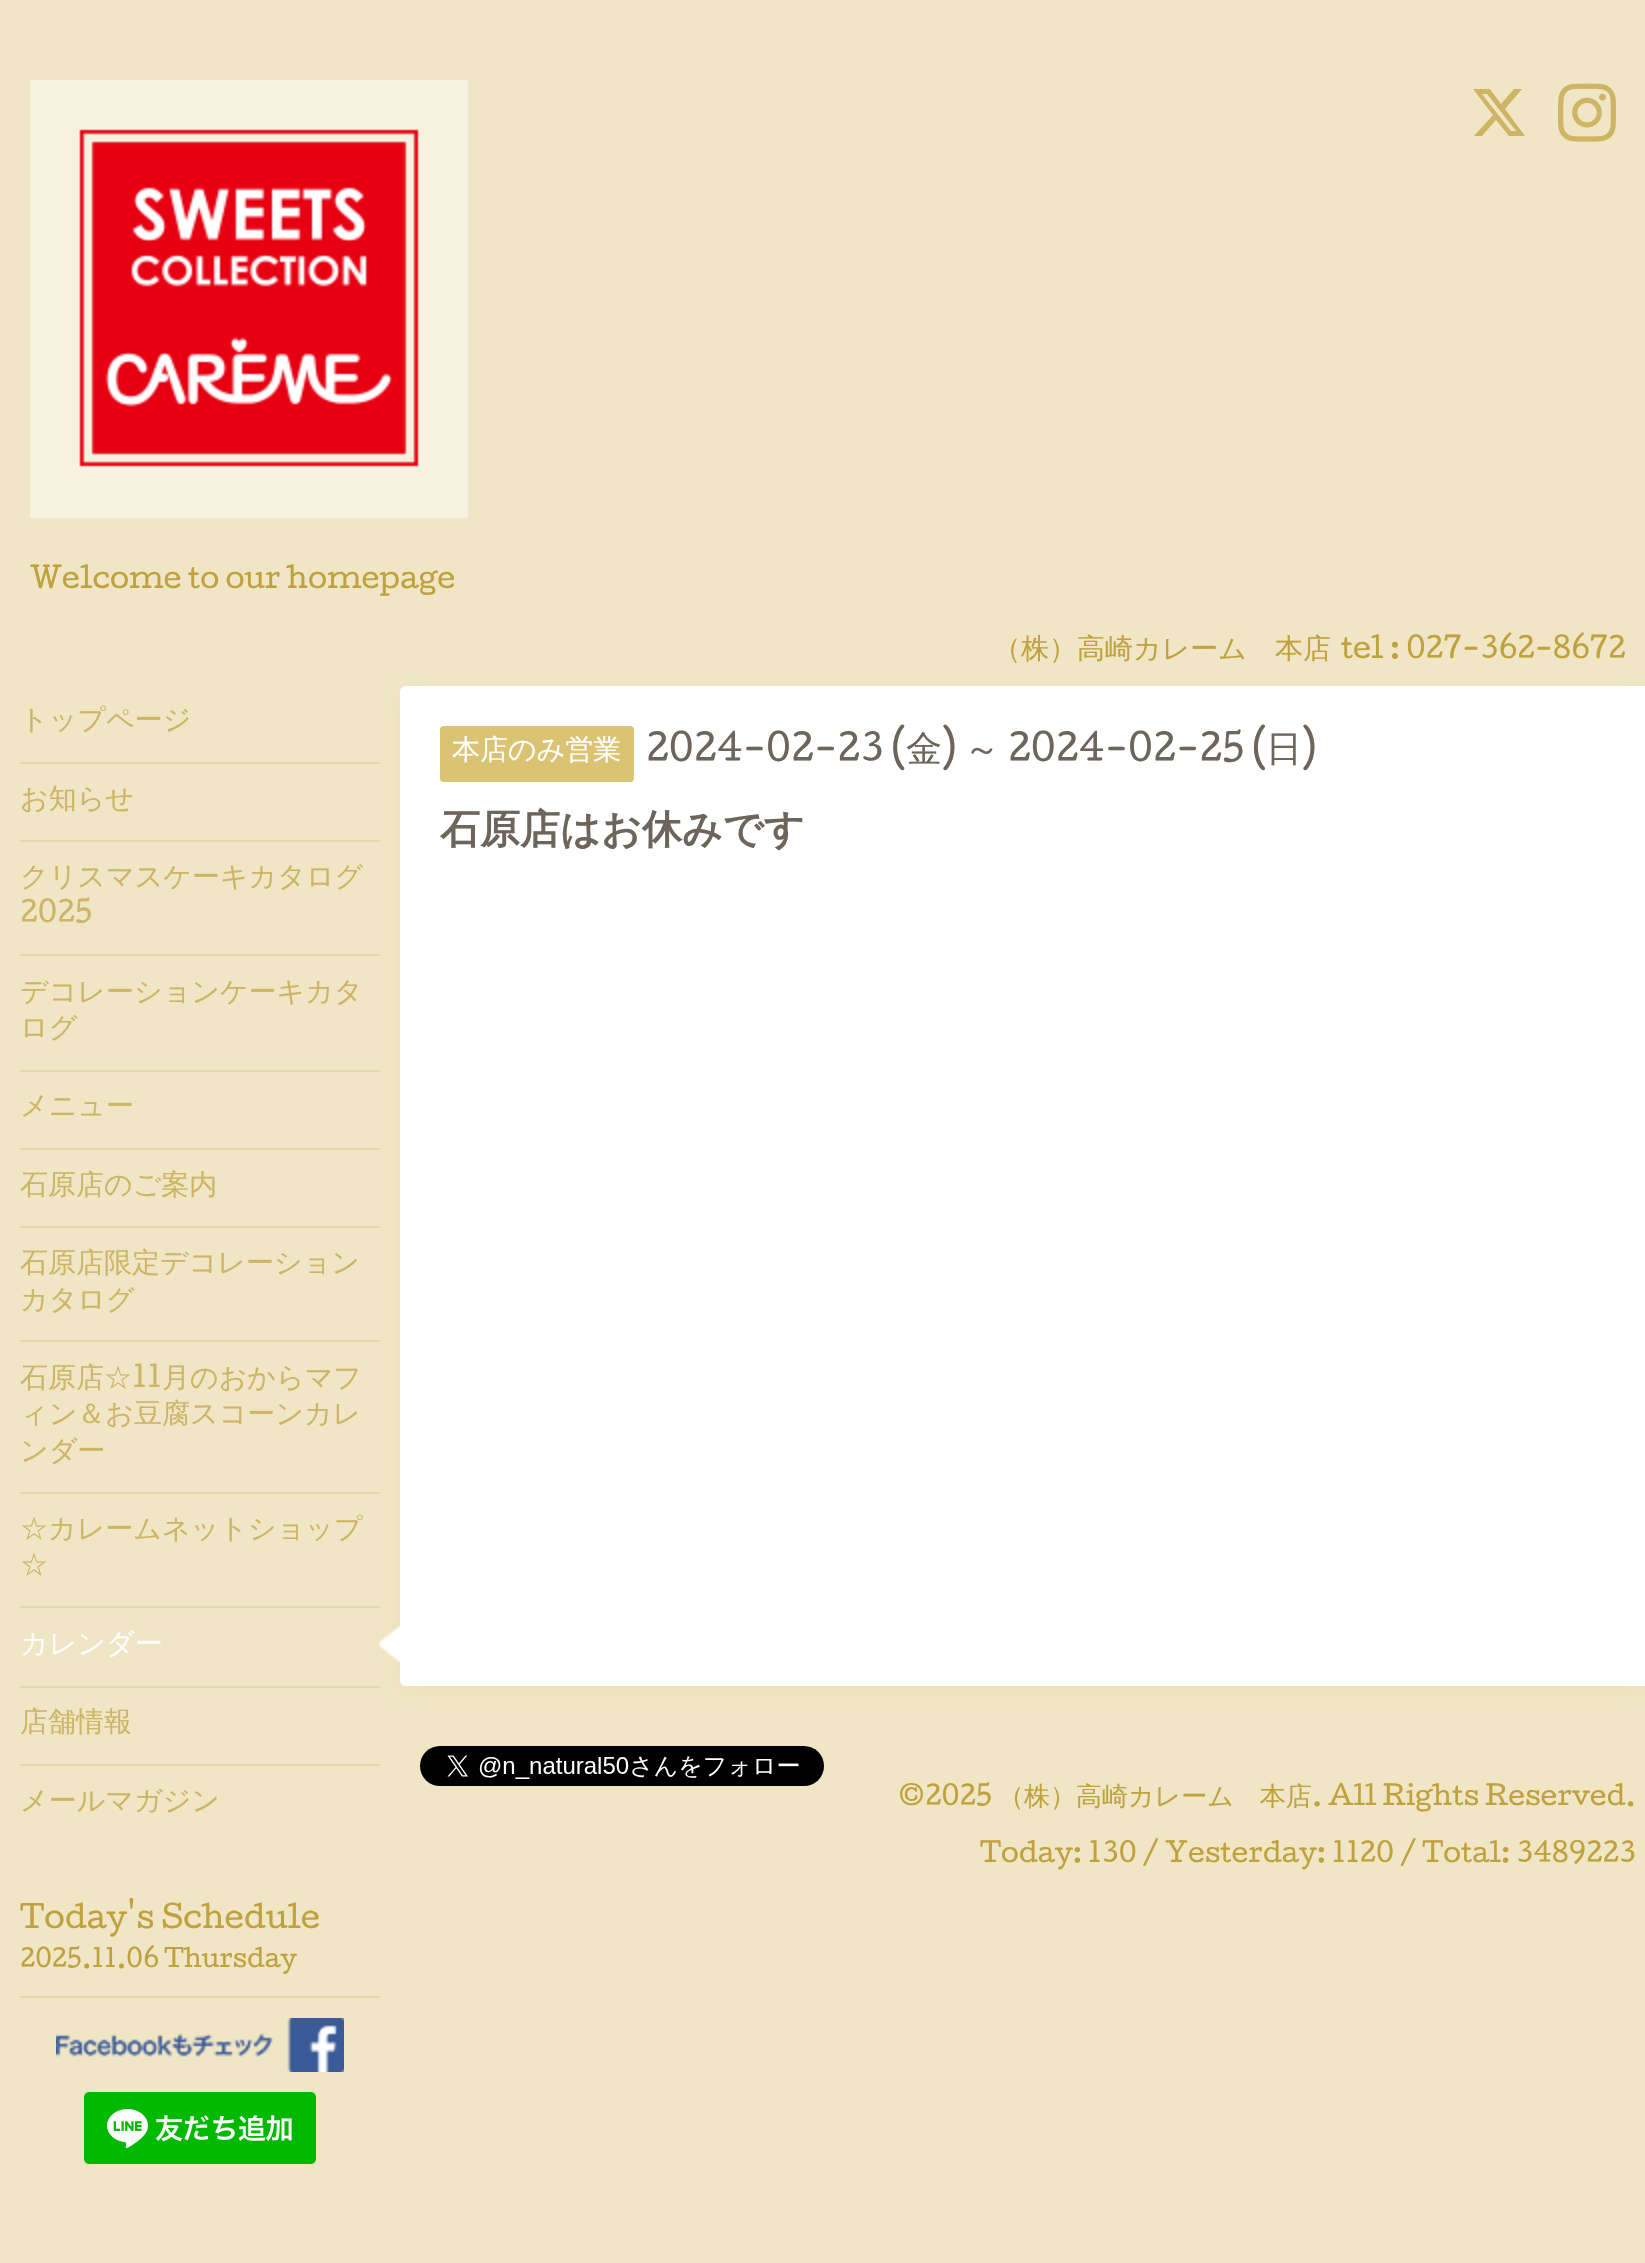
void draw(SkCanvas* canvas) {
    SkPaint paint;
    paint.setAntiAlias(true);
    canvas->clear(0xFFF0E6C5);
    canvas->drawImageRect(SkImages::DeferredFromEncodedData(SkData::MakeFromFileName("img1.png")), SkRect::MakeXYWH(30, 80, 438, 438), SkSamplingOptions());
    paint.setColor(0xFFCDB565);
    canvas->drawPath(SkPathBuilder().moveTo(1514, 89).lineTo(1522, 89).lineTo(1505, 109).lineTo(1525, 136).lineTo(1509, 136).lineTo(1496, 120).lineTo(1482, 136).lineTo(1474, 136).lineTo(1493, 115).lineTo(1473, 89).lineTo(1490, 89).lineTo(1501, 104).close().moveTo(1511, 131).lineTo(1516, 131).lineTo(1487, 94).lineTo(1482, 94).close().detach(), paint);
    canvas->drawImageRect(SkImages::DeferredFromEncodedData(SkData::MakeFromFileName("img2.png")), SkRect::MakeXYWH(1558, 83, 58, 59), SkSamplingOptions());
    SkFont font1(fontMgr->matchFamilyStyle("Cutive", SkFontStyle::Normal()), 28);
    font1.setSubpixel(true);
    paint.setColor(0xFFBFA13D);
    canvas->drawString("Welcome to our homepage", 30, 588, font1, paint);
    SkFont font2(fontMgr->matchFamilyStyle("WenQuanYi Zen Hei", SkFontStyle(500, SkFontStyle::kNormal_Width, SkFontStyle::kUpright_Slant)), 28);
    font2.setSubpixel(true);
    canvas->drawString("（株）高崎カレーム　本店", 993, 658, font2, paint);
    canvas->drawString("tel : 027-362-8672", 1341, 658, font1, paint);
    paint.setColor(0xFFCDB565);
    canvas->drawString("トップページ", 20, 729, font2, paint);
    paint.setColor(0x66E8D8A5);
    paint.setMaskFilter(SkMaskFilter::MakeBlur(kNormal_SkBlurStyle, 10));
    canvas->drawRoundRect(SkRect::MakeXYWH(400, 692, 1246, 1000), 6, 6, paint);
    paint.setMaskFilter(nullptr);
    paint.setColor(0xFFE5D7A8);
    canvas->drawRect(SkRect::MakeXYWH(20, 762, 360, 2), paint);
    paint.setColor(0xFFCDB565);
    canvas->drawString("お知らせ", 20, 808, font2, paint);
    paint.setColor(0xFFE5D7A8);
    canvas->drawRect(SkRect::MakeXYWH(20, 840, 360, 2), paint);
    paint.setColor(0xFFCDB565);
    canvas->drawString("クリスマスケーキカタログ", 20, 886, font2, paint);
    canvas->drawString("2025", 20, 922, font1, paint);
    paint.setColor(0xFFE5D7A8);
    canvas->drawRect(SkRect::MakeXYWH(20, 954, 360, 2), paint);
    paint.setColor(0xFFCDB565);
    canvas->drawString("デコレーションケーキカタ", 20, 1001, font2, paint);
    canvas->drawString("ログ", 20, 1037, font2, paint);
    paint.setColor(0xFFE5D7A8);
    canvas->drawRect(SkRect::MakeXYWH(20, 1070, 360, 2), paint);
    paint.setColor(0xFFCDB565);
    canvas->drawString("メニュー", 20, 1115, font2, paint);
    paint.setColor(0xFFE5D7A8);
    canvas->drawRect(SkRect::MakeXYWH(20, 1148, 360, 2), paint);
    paint.setColor(0xFFCDB565);
    canvas->drawString("石原店のご案内", 20, 1194, font2, paint);
    paint.setColor(0xFFE5D7A8);
    canvas->drawRect(SkRect::MakeXYWH(20, 1226, 360, 2), paint);
    paint.setColor(0xFFCDB565);
    canvas->drawString("石原店限定デコレーション", 20, 1272, font2, paint);
    canvas->drawString("カタログ", 20, 1309, font2, paint);
    paint.setColor(0xFFE5D7A8);
    canvas->drawRect(SkRect::MakeXYWH(20, 1340, 360, 2), paint);
    paint.setColor(0xFFCDB565);
    canvas->drawString("石原店☆", 20, 1387, font2, paint);
    canvas->drawString("11", 132, 1387, font1, paint);
    canvas->drawString("月のおからマフ", 162, 1387, font2, paint);
    canvas->drawString("ィン＆お豆腐スコーンカレ", 20, 1423, font2, paint);
    canvas->drawString("ンダー", 20, 1460, font2, paint);
    paint.setColor(0xFFE5D7A8);
    canvas->drawRect(SkRect::MakeXYWH(20, 1492, 360, 2), paint);
    paint.setColor(0xFFCDB565);
    canvas->drawString("☆カレームネットショップ", 20, 1538, font2, paint);
    canvas->drawString("☆", 20, 1574, font2, paint);
    canvas->drawImageRect(SkImages::DeferredFromEncodedData(SkData::MakeFromFileName("img3.png")), SkRect::MakeXYWH(378, 1626, 22, 36), SkSamplingOptions());
    paint.setColor(0xFFE5D7A8);
    canvas->drawRect(SkRect::MakeXYWH(20, 1606, 360, 2), paint);
    paint.setColor(0xFFFFFFFF);
    canvas->drawString("カレンダー", 20, 1653, font2, paint);
    paint.setColor(0xFFE5D7A8);
    canvas->drawRect(SkRect::MakeXYWH(20, 1686, 360, 2), paint);
    paint.setColor(0xFFCDB565);
    canvas->drawString("店舗情報", 20, 1731, font2, paint);
    paint.setColor(0xFFE5D7A8);
    canvas->drawRect(SkRect::MakeXYWH(20, 1764, 360, 2), paint);
    paint.setColor(0xFFCDB565);
    canvas->drawString("メールマガジン", 20, 1810, font2, paint);
    paint.setColor(0xFFE5D7A8);
    canvas->drawRect(SkRect::MakeXYWH(20, 1996, 360, 2), paint);
    SkFont font3(fontMgr->matchFamilyStyle("Cutive", SkFontStyle::Normal()), 30);
    font3.setSubpixel(true);
    paint.setColor(0xFFBFA13D);
    canvas->drawString("Today's Schedule", 20, 1928, font3, paint);
    SkFont font4(fontMgr->matchFamilyStyle("Cutive", SkFontStyle::Normal()), 24);
    font4.setSubpixel(true);
    canvas->drawString("2025.11.06 Thursday", 20, 1967, font4, paint);
    canvas->drawImageRect(SkImages::DeferredFromEncodedData(SkData::MakeFromFileName("img4.png")), SkRect::MakeXYWH(56, 2018, 288, 54), SkSamplingOptions());
    canvas->drawImageRect(SkImages::DeferredFromEncodedData(SkData::MakeFromFileName("img5.png")), SkRect::MakeXYWH(84, 2092, 232, 72), SkSamplingOptions());
    paint.setColor(0xFFFFFFFF);
    canvas->drawPath(SkPathBuilder().moveTo(406, 686).lineTo(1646, 686).lineTo(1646, 1686).lineTo(406, 1686).cubicTo(402.5f, 1686, 400, 1683.5f, 400, 1680).lineTo(400, 692).cubicTo(400, 688.5f, 402.5f, 686, 406, 686).close().detach(), paint);
    paint.setColor(0xFFDBC374);
    canvas->drawRoundRect(SkRect::MakeXYWH(440, 726, 194, 56), 4, 4, paint);
    paint.setColor(0xFFFFFFFF);
    canvas->drawString("本店のみ営業", 452, 759, font2, paint);
    SkFont font5(fontMgr->matchFamilyStyle("Cutive", SkFontStyle::Normal()), 36);
    font5.setSubpixel(true);
    paint.setColor(0xFF6D655B);
    canvas->drawString("2024-02-23 (", 646, 761, font5, paint);
    SkFont font6(fontMgr->matchFamilyStyle("WenQuanYi Zen Hei", SkFontStyle(500, SkFontStyle::kNormal_Width, SkFontStyle::kUpright_Slant)), 36);
    font6.setSubpixel(true);
    canvas->drawString("金", 906, 761, font6, paint);
    canvas->drawString(")", 942, 761, font5, paint);
    canvas->drawString("～", 964, 761, font6, paint);
    canvas->drawString("2024-02-25 (", 1008, 761, font5, paint);
    canvas->drawString("日", 1266, 761, font6, paint);
    canvas->drawString(")", 1302, 761, font5, paint);
    SkFont font7(fontMgr->matchFamilyStyle("WenQuanYi Zen Hei", SkFontStyle::Bold()), 40);
    font7.setSubpixel(true);
    canvas->drawString("石原店はお休みです", 440, 843, font7, paint);
    canvas->drawImageRect(SkImages::DeferredFromEncodedData(SkData::MakeFromFileName("img6.png")), SkRect::MakeXYWH(420, 1746, 404, 40), SkSamplingOptions());
    SkFont font8(fontMgr->matchFamilyStyle("Cutive", SkFontStyle::Normal()), 26);
    font8.setSubpixel(true);
    paint.setColor(0xFFBFA13D);
    canvas->drawString("©2025", 898, 1805, font8, paint);
    SkFont font9(fontMgr->matchFamilyStyle("WenQuanYi Zen Hei", SkFontStyle(500, SkFontStyle::kNormal_Width, SkFontStyle::kUpright_Slant)), 26);
    font9.setSubpixel(true);
    canvas->drawString("（株）高崎カレーム　本店", 998, 1805, font9, paint);
    canvas->drawString(". All Rights Reserved.", 1312, 1805, font8, paint);
    canvas->drawString("Today: 130 / Yesterday: 1120 / Total: 3489223", 980, 1862, font8, paint);
}
